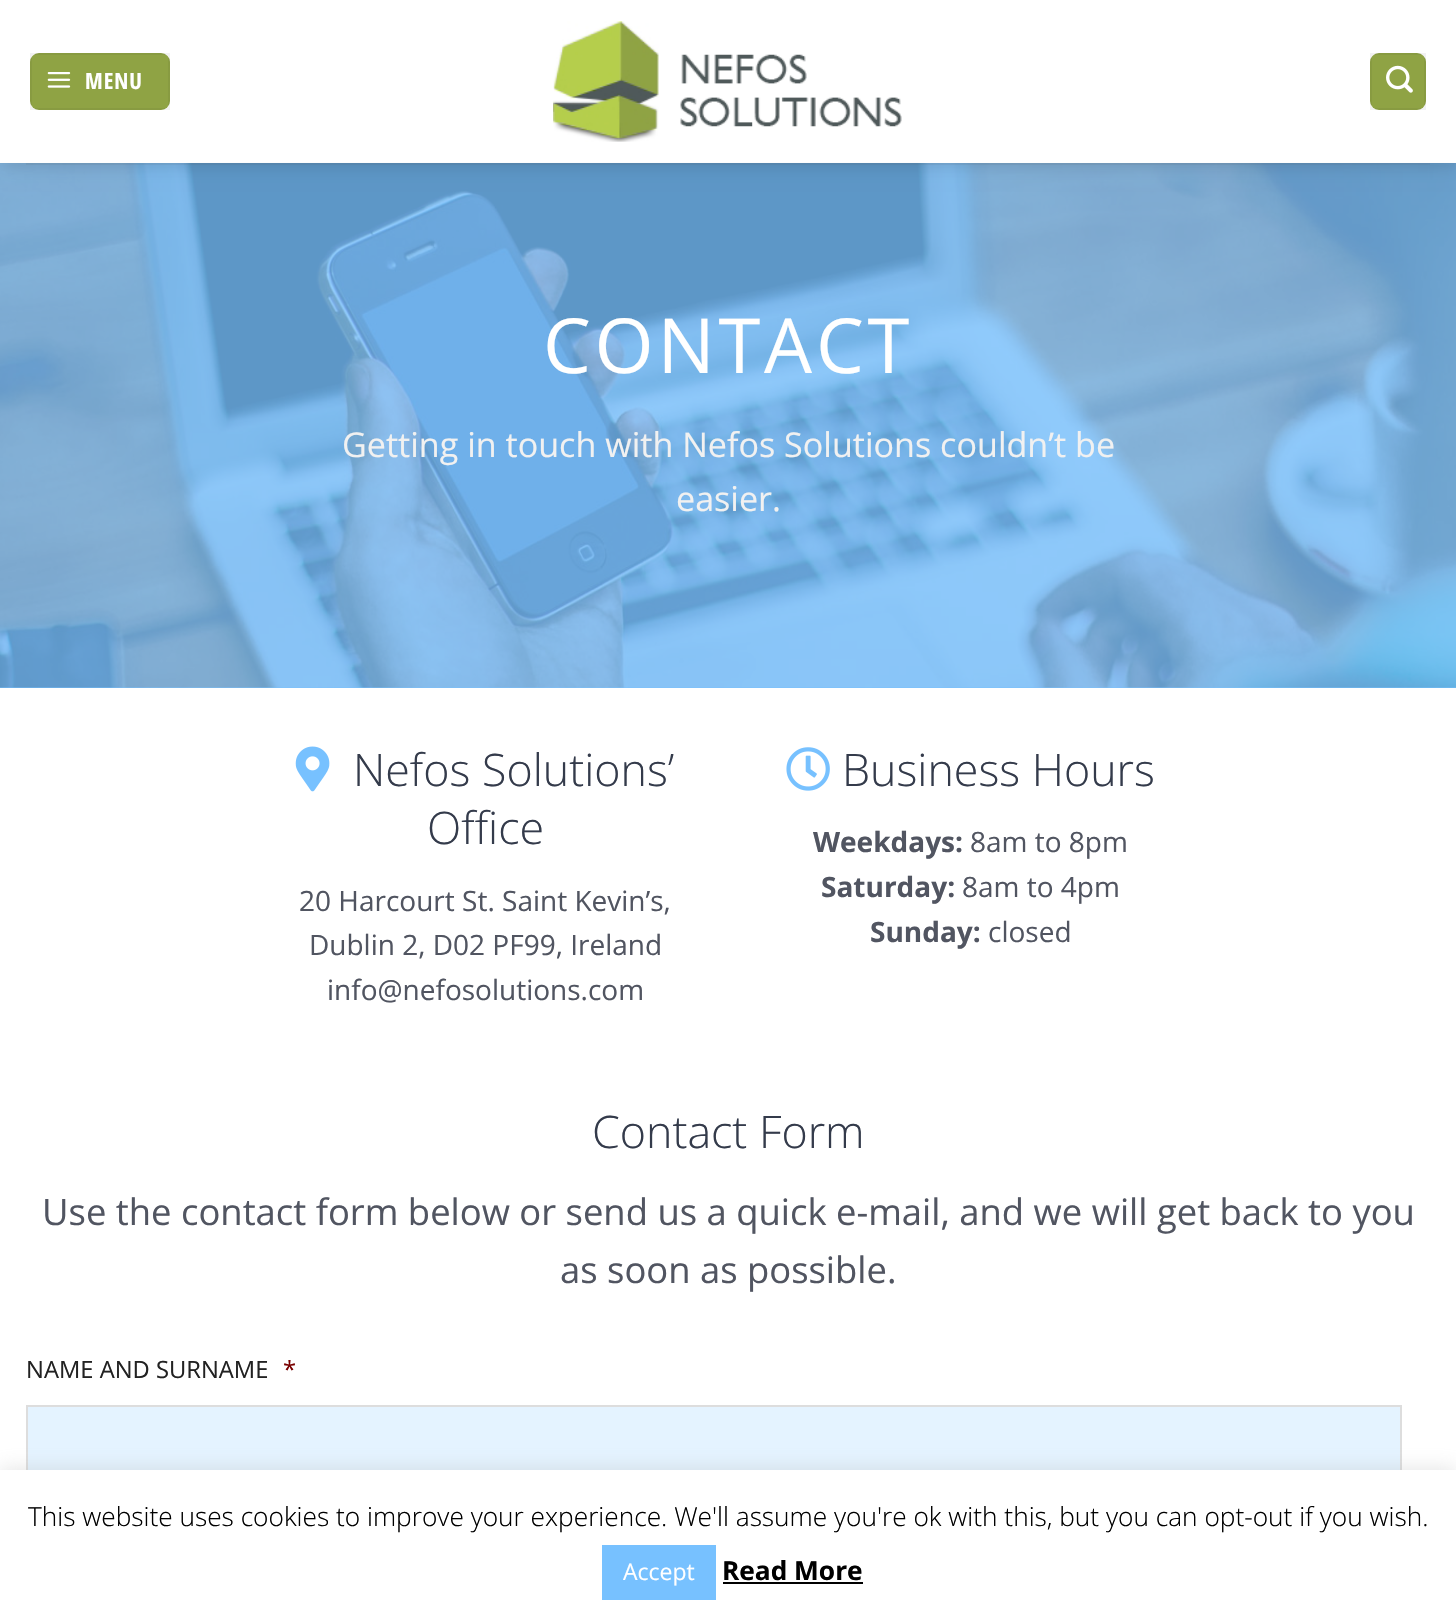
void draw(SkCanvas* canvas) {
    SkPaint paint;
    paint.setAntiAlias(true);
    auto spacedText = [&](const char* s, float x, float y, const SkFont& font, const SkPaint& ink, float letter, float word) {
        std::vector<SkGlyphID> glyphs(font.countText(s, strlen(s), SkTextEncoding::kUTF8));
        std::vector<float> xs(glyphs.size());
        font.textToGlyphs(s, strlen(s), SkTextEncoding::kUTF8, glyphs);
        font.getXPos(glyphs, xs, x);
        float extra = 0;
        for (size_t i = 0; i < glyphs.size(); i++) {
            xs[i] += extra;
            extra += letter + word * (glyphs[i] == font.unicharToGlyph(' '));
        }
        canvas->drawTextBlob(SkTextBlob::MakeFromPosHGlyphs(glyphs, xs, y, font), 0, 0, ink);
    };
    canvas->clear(0xFFFFFFFF);
    paint.setColor(0xFF77C1FF);
    canvas->drawRect(SkRect::MakeXYWH(0, 687, 1456, 1), paint);
    canvas->drawImageRect(SkImages::DeferredFromEncodedData(SkData::MakeFromFileName("img4.png")), SkRect::MakeXYWH(0, 162, 1456, 526), SkSamplingOptions());
    canvas->save();
    canvas->clipPath(SkPathBuilder(SkPathFillType::kEvenOdd).moveTo(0, 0).lineTo(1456, 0).lineTo(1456, 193).lineTo(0, 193).close().moveTo(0, 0).lineTo(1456, 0).lineTo(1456, 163).lineTo(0, 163).close().detach(), true);
    paint.setColor(0x26000000);
    paint.setMaskFilter(SkMaskFilter::MakeBlur(kNormal_SkBlurStyle, 9));
    canvas->drawRect(SkRect::MakeXYWH(2, 2, 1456, 163), paint);
    paint.setMaskFilter(nullptr);
    canvas->restore();
    paint.setColor(0xFF8FA344);
    canvas->drawRoundRect(SkRect::MakeXYWH(30, 53, 140, 57), 9, 9, paint);
    paint.setStyle(SkPaint::kStroke_Style);
    paint.setStrokeWidth(2);
    paint.setColor(0x0D000000);
    canvas->drawRect(SkRect::MakeXYWH(31, 54, 138, 55), paint);
    canvas->drawImageRect(SkImages::DeferredFromEncodedData(SkData::MakeFromFileName("img1.png")), SkRect::MakeXYWH(47, 72, 24, 16), SkSamplingOptions());
    SkFont font1(fontMgr->matchFamilyStyle("Open Sans Condensed", SkFontStyle::Bold()), 22.5f);
    font1.setSubpixel(true);
    paint.setStyle(SkPaint::kFill_Style);
    paint.setColor(0xFFFFFFFF);
    spacedText("MENU", 85, 89, font1, paint, 1, 0);
    canvas->drawImageRect(SkImages::DeferredFromEncodedData(SkData::MakeFromFileName("img2.png")), SkRect::MakeXYWH(553, 21, 349, 121), SkSamplingOptions());
    paint.setColor(0xFF8FA344);
    canvas->drawRoundRect(SkRect::MakeXYWH(1370, 53, 56, 57), 9, 9, paint);
    paint.setStyle(SkPaint::kStroke_Style);
    paint.setColor(0x0D000000);
    canvas->drawRect(SkRect::MakeXYWH(1371, 54, 54, 55), paint);
    canvas->drawImageRect(SkImages::DeferredFromEncodedData(SkData::MakeFromFileName("img3.png")), SkRect::MakeXYWH(1386, 65, 27, 28), SkSamplingOptions());
    paint.setStyle(SkPaint::kFill_Style);
    paint.setColor(0x1A515561);
    canvas->drawRect(SkRect::MakeXYWH(26, 163, 1404, 2), paint);
    paint.setColor(0xD1FFFFFF);
    canvas->drawRect(SkRect::MakeXYWH(0, 162, 1456, 1), paint);
    SkFont font2(fontMgr->matchFamilyStyle("Open Sans", SkFontStyle::Normal()), 76);
    font2.setSubpixel(true);
    paint.setColor(0xFFFFFFFF);
    spacedText("CONTACT", 543, 373, font2, paint, 3.75f, 0);
    SkFont font3(fontMgr->matchFamilyStyle("Open Sans", SkFontStyle::Normal()), 34.1f);
    font3.setSubpixel(true);
    paint.setColor(0xFFF1F1F1);
    canvas->drawString("Getting in touch with Nefos Solutions couldn’t be", 342, 457, font3, paint);
    canvas->drawString("easier.", 676, 511, font3, paint);
    canvas->drawImageRect(SkImages::DeferredFromEncodedData(SkData::MakeFromFileName("img5.png")), SkRect::MakeXYWH(295, 746, 35, 46), SkSamplingOptions());
    SkFont font4(fontMgr->matchFamilyStyle("Open Sans", SkFontStyle(300, SkFontStyle::kNormal_Width, SkFontStyle::kUpright_Slant)), 44.75f);
    font4.setSubpixel(true);
    paint.setColor(0xFF343B4B);
    canvas->drawString("Nefos Solutions’", 353, 786, font4, paint);
    canvas->drawString("Office", 427, 844, font4, paint);
    SkFont font5(fontMgr->matchFamilyStyle("Open Sans", SkFontStyle::Normal()), 28);
    font5.setSubpixel(true);
    paint.setColor(0xFF515561);
    canvas->drawString("20 Harcourt St. Saint Kevin’s,", 299, 911, font5, paint);
    canvas->drawString("Dublin 2, D02 PF99, Ireland", 309, 955, font5, paint);
    canvas->drawString("info@nefosolutions.com", 327, 1000, font5, paint);
    canvas->drawImageRect(SkImages::DeferredFromEncodedData(SkData::MakeFromFileName("img6.png")), SkRect::MakeXYWH(786, 747, 44, 44), SkSamplingOptions());
    paint.setColor(0xFF343B4B);
    canvas->drawString("Business Hours", 842, 786, font4, paint);
    SkFont font6(fontMgr->matchFamilyStyle("Open Sans", SkFontStyle::Bold()), 28);
    font6.setSubpixel(true);
    paint.setColor(0xFF515561);
    canvas->drawString("Weekdays:", 813, 852, font6, paint);
    canvas->drawString("8am to 8pm", 970, 852, font5, paint);
    canvas->drawString("Saturday:", 821, 897, font6, paint);
    canvas->drawString("8am to 4pm", 962, 897, font5, paint);
    canvas->drawString("Sunday:", 870, 942, font6, paint);
    canvas->drawString("closed", 988, 942, font5, paint);
    paint.setColor(0xFF343B4B);
    canvas->drawString("Contact Form", 592, 1148, font4, paint);
    SkFont font7(fontMgr->matchFamilyStyle("Open Sans", SkFontStyle::Normal()), 36.4f);
    font7.setSubpixel(true);
    paint.setColor(0xFF515561);
    canvas->drawString("Use the contact form below or send us a quick e-mail, and we will get back to you", 42, 1225, font7, paint);
    canvas->drawString("as soon as possible.", 560, 1283, font7, paint);
    SkFont font8(fontMgr->matchFamilyStyle("Open Sans", SkFontStyle::Normal()), 23.75f);
    font8.setSubpixel(true);
    paint.setColor(0xFF222222);
    canvas->drawString("NAME AND SURNAME", 26, 1378, font8, paint);
    paint.setColor(0xFF790000);
    canvas->drawString("*", 283, 1378, font8, paint);
    paint.setColor(0xFFE4F3FF);
    canvas->drawRect(SkRect::MakeXYWH(28, 1407, 1372, 63), paint);
    paint.setStyle(SkPaint::kStroke_Style);
    paint.setColor(0xFFDDDDDD);
    canvas->drawRect(SkRect::MakeXYWH(27, 1406, 1374, 68), paint);
    paint.setStyle(SkPaint::kFill_Style);
    paint.setColor(0x4DACABAB);
    paint.setMaskFilter(SkMaskFilter::MakeBlur(kNormal_SkBlurStyle, 9));
    canvas->drawRect(SkRect::MakeXYWH(0, 1468, 1456, 151), paint);
    paint.setMaskFilter(nullptr);
    paint.setColor(0xFFFFFFFF);
    canvas->drawRect(SkRect::MakeXYWH(0, 1470, 1456, 150), paint);
    SkFont font9(fontMgr->matchFamilyStyle("Open Sans", SkFontStyle(300, SkFontStyle::kNormal_Width, SkFontStyle::kUpright_Slant)), 26.25f);
    font9.setSubpixel(true);
    paint.setColor(0xFF000000);
    canvas->drawString("This website uses cookies to improve your experience. We'll assume you're ok with this, but you can opt-out if you wish.", 28, 1526, font9, paint);
    paint.setColor(0xFF77C1FF);
    canvas->drawRect(SkRect::MakeXYWH(602, 1545, 114, 55), paint);
    SkFont font10(fontMgr->matchFamilyStyle("Open Sans", SkFontStyle::Normal()), 23);
    font10.setSubpixel(true);
    paint.setColor(0xFFFFFFFF);
    canvas->drawString("Accept", 623, 1580, font10, paint);
    SkFont font11(fontMgr->matchFamilyStyle("Open Sans", SkFontStyle::Bold()), 26.25f);
    font11.setSubpixel(true);
    paint.setColor(0xFF000000);
    canvas->drawString("Read More", 722, 1580, font11, paint);
    canvas->drawRect(SkRect::MakeXYWH(723, 1582, 140, 2), paint);
}
